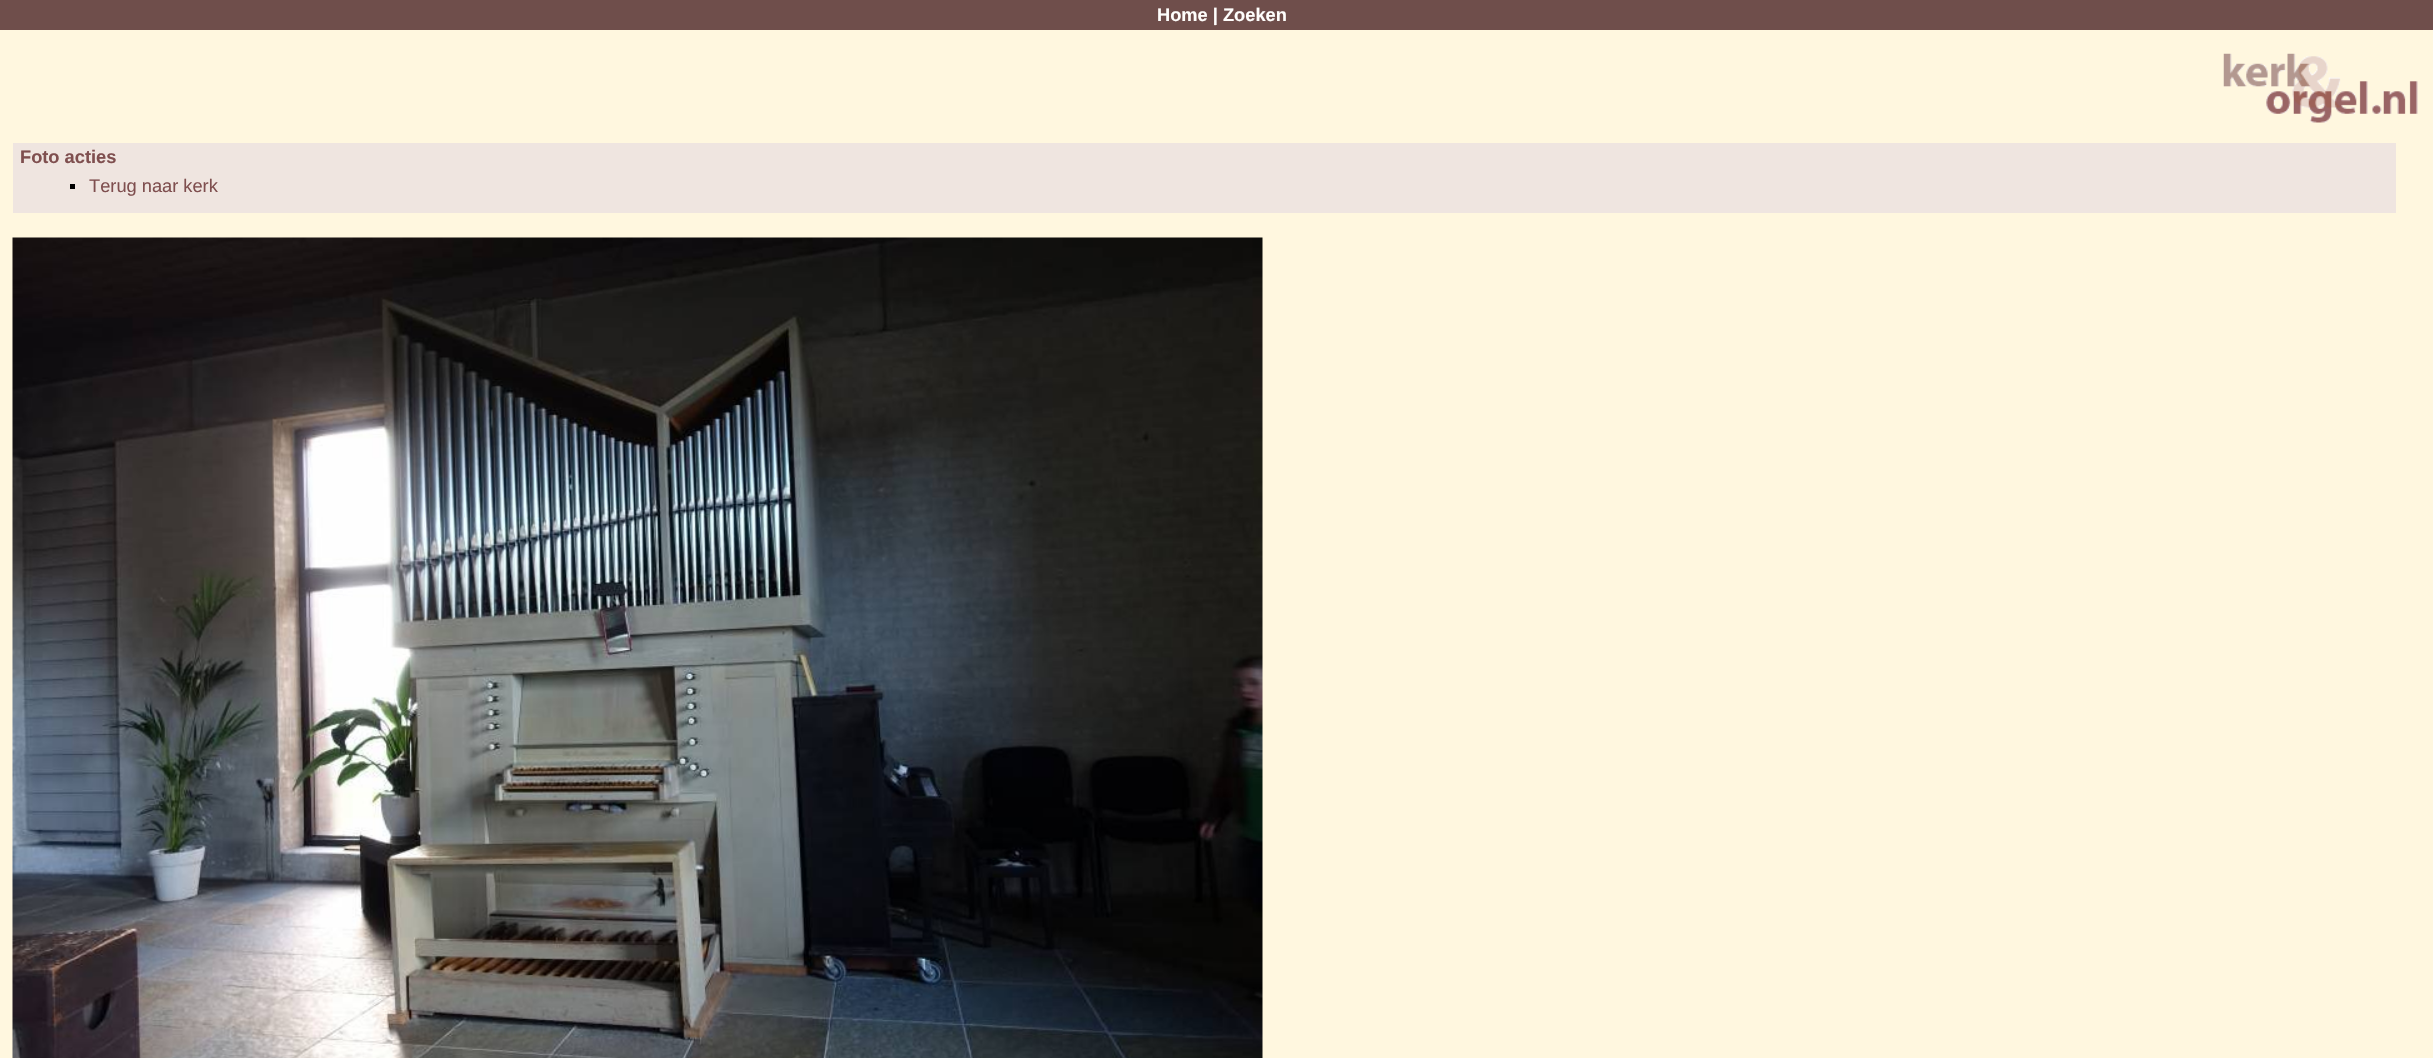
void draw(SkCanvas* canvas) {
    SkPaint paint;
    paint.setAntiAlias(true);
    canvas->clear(0xFFFFF7DF);
    paint.setColor(0xFF6F4E4B);
    canvas->drawRect(SkRect::MakeXYWH(0, 0, 2433, 30), paint);
    SkFont font1(fontMgr->matchFamilyStyle("Liberation Sans", SkFontStyle::Bold()), 18.25f);
    font1.setSubpixel(true);
    paint.setColor(0xFFFFFEFC);
    canvas->drawString("Home | Zoeken", 1157, 21, font1, paint);
    canvas->drawImageRect(SkImages::DeferredFromEncodedData(SkData::MakeFromFileName("img1.png")), SkRect::MakeXYWH(2223, 53, 195, 70), SkSamplingOptions());
    paint.setColor(0xFFEFE5E0);
    canvas->drawRect(SkRect::MakeXYWH(13, 143, 2383, 70), paint);
    paint.setColor(0xFF7F4F4F);
    canvas->drawString("Foto acties", 20, 163, font1, paint);
    paint.setColor(0xFF000000);
    canvas->drawRect(SkRect::MakeXYWH(70, 184, 5, 5), paint);
    SkFont font2(fontMgr->matchFamilyStyle("Liberation Sans", SkFontStyle::Normal()), 18.25f);
    font2.setSubpixel(true);
    paint.setColor(0xFF7F4F4F);
    canvas->drawString("Terug naar kerk", 89, 192, font2, paint);
    canvas->drawImageRect(SkImages::DeferredFromEncodedData(SkData::MakeFromFileName("img2.png")), SkRect::MakeXYWH(12, 237, 1251, 821), SkSamplingOptions());
}
